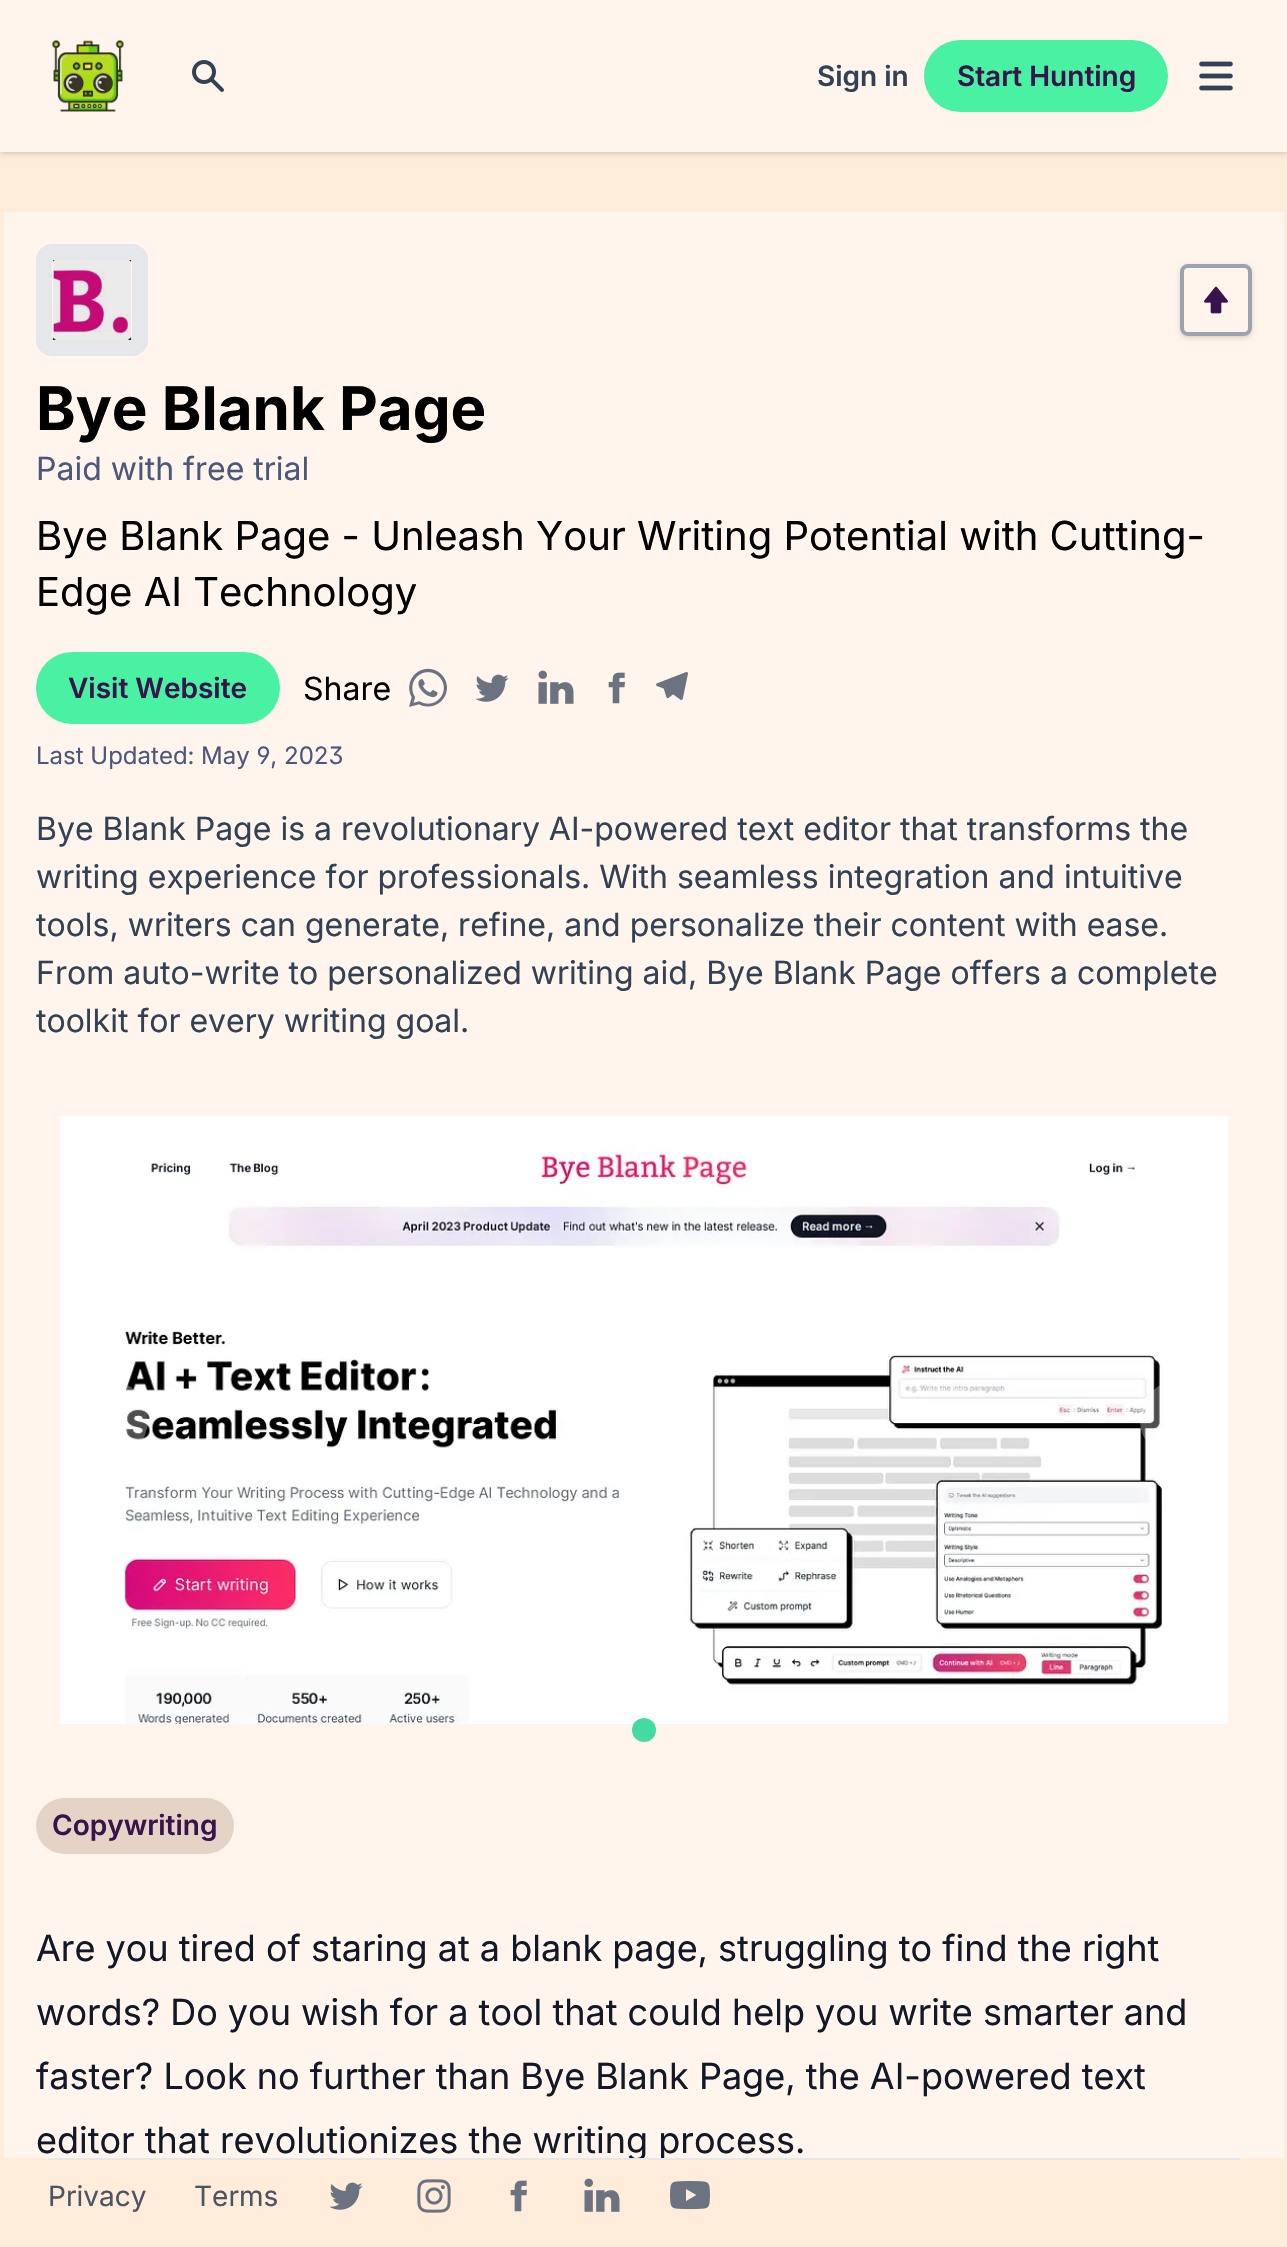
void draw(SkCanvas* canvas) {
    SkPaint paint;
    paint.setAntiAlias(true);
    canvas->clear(0xFFFFECDB);
    paint.setColor(0x1A000000);
    paint.setMaskFilter(SkMaskFilter::MakeBlur(kNormal_SkBlurStyle, 2));
    canvas->drawRect(SkRect::MakeXYWH(2, 4, 1284, 148), paint);
    paint.setMaskFilter(nullptr);
    paint.setMaskFilter(SkMaskFilter::MakeBlur(kNormal_SkBlurStyle, 3));
    canvas->drawRect(SkRect::MakeXYWH(0, 2, 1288, 152), paint);
    paint.setMaskFilter(nullptr);
    paint.setColor(0xFFFFF5ED);
    canvas->drawRect(SkRect::MakeXYWH(0, 0, 1287, 152), paint);
    canvas->drawImageRect(SkImages::DeferredFromEncodedData(SkData::MakeFromFileName("img1.png")), SkRect::MakeXYWH(51, 39, 74, 73), SkSamplingOptions());
    canvas->drawImageRect(SkImages::DeferredFromEncodedData(SkData::MakeFromFileName("img2.png")), SkRect::MakeXYWH(192, 60, 32, 32), SkSamplingOptions());
    SkFont font1(fontMgr->matchFamilyStyle("Inter", SkFontStyle(600, SkFontStyle::kNormal_Width, SkFontStyle::kUpright_Slant)), 28);
    font1.setSubpixel(true);
    paint.setColor(0xFF334155);
    canvas->drawString("Sign in", 817, 86, font1, paint);
    paint.setColor(0xFF49F2A3);
    canvas->drawRoundRect(SkRect::MakeXYWH(924, 40, 244, 72), 36, 36, paint);
    paint.setColor(0xFF39134C);
    canvas->drawString("Start Hunting", 957, 86, font1, paint);
    canvas->drawImageRect(SkImages::DeferredFromEncodedData(SkData::MakeFromFileName("img3.png")), SkRect::MakeXYWH(1199, 61, 34, 30), SkSamplingOptions());
    paint.setColor(0xFFFFF5ED);
    canvas->drawRect(SkRect::MakeXYWH(4, 212, 1280, 1946), paint);
    paint.setStyle(SkPaint::kStroke_Style);
    paint.setStrokeWidth(16);
    paint.setColor(0xFFE5E7EB);
    canvas->drawRoundRect(SkRect::MakeXYWH(44, 252, 96, 96), 8, 8, paint);
    canvas->drawImageRect(SkImages::DeferredFromEncodedData(SkData::MakeFromFileName("img4.png")), SkRect::MakeXYWH(52, 260, 80, 80), SkSamplingOptions());
    canvas->save();
    canvas->clipPath(SkPathBuilder(SkPathFillType::kEvenOdd).moveTo(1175, 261).lineTo(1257, 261).lineTo(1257, 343).lineTo(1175, 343).close().moveTo(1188, 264).lineTo(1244, 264).cubicTo(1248.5f, 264, 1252, 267.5f, 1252, 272).lineTo(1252, 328).cubicTo(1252, 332.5f, 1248.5f, 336, 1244, 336).lineTo(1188, 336).cubicTo(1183.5f, 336, 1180, 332.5f, 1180, 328).lineTo(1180, 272).cubicTo(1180, 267.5f, 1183.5f, 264, 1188, 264).close().detach(), true);
    paint.setStyle(SkPaint::kFill_Style);
    paint.setColor(0x1A000000);
    paint.setMaskFilter(SkMaskFilter::MakeBlur(kNormal_SkBlurStyle, 2));
    canvas->drawRoundRect(SkRect::MakeXYWH(1182, 268, 68, 68), 6, 6, paint);
    paint.setMaskFilter(nullptr);
    canvas->restore();
    canvas->save();
    canvas->clipPath(SkPathBuilder(SkPathFillType::kEvenOdd).moveTo(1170, 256).lineTo(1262, 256).lineTo(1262, 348).lineTo(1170, 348).close().moveTo(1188, 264).lineTo(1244, 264).cubicTo(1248.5f, 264, 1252, 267.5f, 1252, 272).lineTo(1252, 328).cubicTo(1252, 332.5f, 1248.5f, 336, 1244, 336).lineTo(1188, 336).cubicTo(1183.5f, 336, 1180, 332.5f, 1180, 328).lineTo(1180, 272).cubicTo(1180, 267.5f, 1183.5f, 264, 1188, 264).close().detach(), true);
    paint.setMaskFilter(SkMaskFilter::MakeBlur(kNormal_SkBlurStyle, 3));
    canvas->drawRoundRect(SkRect::MakeXYWH(1180, 266, 72, 72), 8, 8, paint);
    paint.setMaskFilter(nullptr);
    canvas->restore();
    paint.setStyle(SkPaint::kStroke_Style);
    paint.setStrokeWidth(4);
    paint.setColor(0xFF9CA3AF);
    canvas->drawRoundRect(SkRect::MakeXYWH(1182, 266, 68, 68), 6, 6, paint);
    canvas->drawImageRect(SkImages::DeferredFromEncodedData(SkData::MakeFromFileName("img5.png")), SkRect::MakeXYWH(1204, 286, 24, 28), SkSamplingOptions());
    SkFont font2(fontMgr->matchFamilyStyle("Inter", SkFontStyle::Bold()), 60);
    font2.setSubpixel(true);
    paint.setStyle(SkPaint::kFill_Style);
    paint.setColor(0xFF000000);
    canvas->drawString("Bye Blank Page", 36, 430, font2, paint);
    SkFont font3(fontMgr->matchFamilyStyle("Inter", SkFontStyle::Normal()), 32);
    font3.setSubpixel(true);
    paint.setColor(0xFF4B587C);
    canvas->drawString("Paid with free trial", 36, 480, font3, paint);
    SkFont font4(fontMgr->matchFamilyStyle("Inter", SkFontStyle::Normal()), 40);
    font4.setSubpixel(true);
    paint.setColor(0xFF000000);
    canvas->drawString("Bye Blank Page - Unleash Your Writing Potential with Cutting-", 36, 550, font4, paint);
    canvas->drawString("Edge AI Technology", 36, 606, font4, paint);
    paint.setColor(0xFF49F2A3);
    canvas->drawRoundRect(SkRect::MakeXYWH(36, 652, 244, 72), 36, 36, paint);
    paint.setColor(0xFF39134C);
    canvas->drawString("Visit Website", 68, 698, font1, paint);
    paint.setColor(0xFF000000);
    canvas->drawString("Share", 303, 700, font3, paint);
    canvas->drawImageRect(SkImages::DeferredFromEncodedData(SkData::MakeFromFileName("img6.png")), SkRect::MakeXYWH(409, 668, 38, 39), SkSamplingOptions());
    canvas->drawImageRect(SkImages::DeferredFromEncodedData(SkData::MakeFromFileName("img7.png")), SkRect::MakeXYWH(475, 674, 34, 28), SkSamplingOptions());
    canvas->drawImageRect(SkImages::DeferredFromEncodedData(SkData::MakeFromFileName("img8.png")), SkRect::MakeXYWH(538, 670, 36, 34), SkSamplingOptions());
    canvas->drawImageRect(SkImages::DeferredFromEncodedData(SkData::MakeFromFileName("img9.png")), SkRect::MakeXYWH(608, 672, 17, 32), SkSamplingOptions());
    canvas->drawImageRect(SkImages::DeferredFromEncodedData(SkData::MakeFromFileName("img10.png")), SkRect::MakeXYWH(656, 672, 32, 28), SkSamplingOptions());
    SkFont font5(fontMgr->matchFamilyStyle("Inter", SkFontStyle::Normal()), 24);
    font5.setSubpixel(true);
    paint.setColor(0xFF4B587C);
    canvas->drawString("Last Updated:", 36, 764, font5, paint);
    SkFont font6(fontMgr->matchFamilyStyle("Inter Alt", SkFontStyle::Normal()), 24);
    font6.setSubpixel(true);
    canvas->drawString("May 9, 2023", 201, 764, font6, paint);
    paint.setColor(0xFF334155);
    canvas->drawString("Bye Blank Page is a revolutionary AI-powered text editor that transforms the", 36, 840, font3, paint);
    canvas->drawString("writing experience for professionals. With seamless integration and intuitive", 36, 888, font3, paint);
    canvas->drawString("tools, writers can generate, refine, and personalize their content with ease.", 36, 936, font3, paint);
    canvas->drawString("From auto-write to personalized writing aid, Bye Blank Page offers a complete", 36, 984, font3, paint);
    canvas->drawString("toolkit for every writing goal.", 36, 1032, font3, paint);
    canvas->drawImageRect(SkImages::DeferredFromEncodedData(SkData::MakeFromFileName("img11.png")), SkRect::MakeXYWH(60, 1116, 1168, 608), SkSamplingOptions());
    paint.setColor(0x4DFFFFFF);
    canvas->drawCircle(108, 1420, 40, paint);
    canvas->drawCircle(1180, 1420, 40, paint);
    paint.setColor(0xFF42DCA3);
    canvas->drawCircle(644, 1730, 12, paint);
    paint.setColor(0xFFE5D4C5);
    canvas->drawRoundRect(SkRect::MakeXYWH(36, 1798, 198, 56), 28, 28, paint);
    paint.setColor(0xFF39134C);
    canvas->drawString("Copywriting", 52, 1835, font1, paint);
    SkFont font7(fontMgr->matchFamilyStyle("Inter", SkFontStyle::Normal()), 36);
    font7.setSubpixel(true);
    paint.setColor(0xFF111827);
    canvas->drawString("Are you tired of staring at a blank page, struggling to find the right", 36, 1961, font7, paint);
    canvas->drawString("words? Do you wish for a tool that could help you write smarter and", 36, 2025, font7, paint);
    canvas->drawString("faster? Look no further than Bye Blank Page, the AI-powered text", 36, 2089, font7, paint);
    canvas->save();
    canvas->clipRect(SkRect::MakeXYWH(0, 152, 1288, 2006));
    canvas->drawString("editor that revolutionizes the writing process.", 36, 2153, font7, paint);
    canvas->restore();
    paint.setColor(0xFFE5E7EB);
    canvas->drawRect(SkRect::MakeXYWH(48, 2158, 1192, 2), paint);
    SkFont font8(fontMgr->matchFamilyStyle("Inter", SkFontStyle::Normal()), 28);
    font8.setSubpixel(true);
    paint.setColor(0xFF4B5563);
    canvas->drawString("Privacy", 48, 2206, font8, paint);
    canvas->drawString("Terms", 194, 2206, font8, paint);
    canvas->drawImageRect(SkImages::DeferredFromEncodedData(SkData::MakeFromFileName("img12.png")), SkRect::MakeXYWH(329, 2182, 34, 28), SkSamplingOptions());
    canvas->drawImageRect(SkImages::DeferredFromEncodedData(SkData::MakeFromFileName("img13.png")), SkRect::MakeXYWH(417, 2179, 34, 34), SkSamplingOptions());
    canvas->drawImageRect(SkImages::DeferredFromEncodedData(SkData::MakeFromFileName("img14.png")), SkRect::MakeXYWH(510, 2180, 17, 32), SkSamplingOptions());
    canvas->drawImageRect(SkImages::DeferredFromEncodedData(SkData::MakeFromFileName("img15.png")), SkRect::MakeXYWH(584, 2178, 36, 34), SkSamplingOptions());
    canvas->drawImageRect(SkImages::DeferredFromEncodedData(SkData::MakeFromFileName("img16.png")), SkRect::MakeXYWH(670, 2181, 40, 29), SkSamplingOptions());
}
